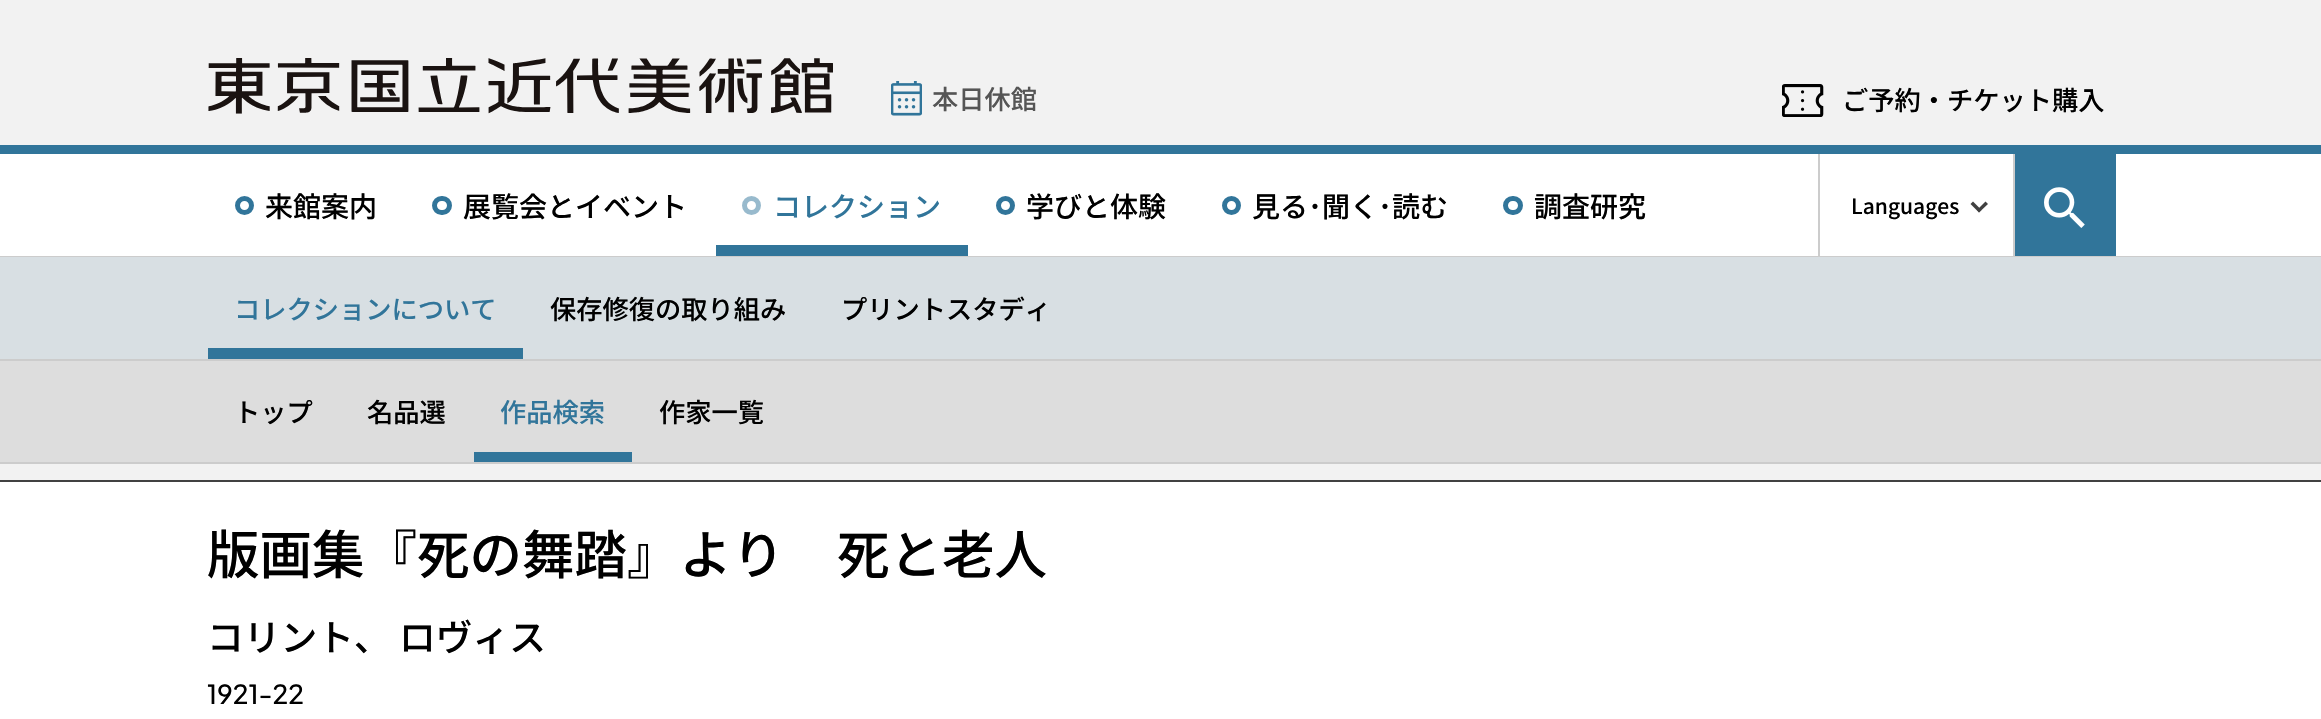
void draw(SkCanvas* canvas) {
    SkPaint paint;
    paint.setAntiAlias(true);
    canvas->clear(0xFFF2F2F2);
    paint.setColor(0xFF31759A);
    canvas->drawRect(SkRect::MakeXYWH(0, 145, 2321, 9), paint);
    canvas->drawImageRect(SkImages::DeferredFromEncodedData(SkData::MakeFromFileName("img1.png")), SkRect::MakeXYWH(208, 58, 625, 56), SkSamplingOptions());
    canvas->drawImageRect(SkImages::DeferredFromEncodedData(SkData::MakeFromFileName("img2.png")), SkRect::MakeXYWH(891, 81, 31, 35), SkSamplingOptions());
    SkFont font1(fontMgr->matchFamilyStyle("Noto Sans JP", SkFontStyle(500, SkFontStyle::kNormal_Width, SkFontStyle::kUpright_Slant)), 26.25f);
    font1.setSubpixel(true);
    paint.setColor(0xFF555555);
    canvas->drawString("本日休館", 932, 109, font1, paint);
    canvas->drawImageRect(SkImages::DeferredFromEncodedData(SkData::MakeFromFileName("img3.png")), SkRect::MakeXYWH(1782, 84, 42, 33), SkSamplingOptions());
    paint.setColor(0xFF000000);
    canvas->drawString("ご予約・チケット購入", 1842, 110, font1, paint);
    paint.setColor(0xFFFFFFFF);
    canvas->drawRect(SkRect::MakeXYWH(0, 154, 2321, 102), paint);
    paint.setColor(0xFFCCCCCC);
    canvas->drawRect(SkRect::MakeXYWH(0, 256, 2321, 1), paint);
    paint.setStyle(SkPaint::kStroke_Style);
    paint.setStrokeWidth(5);
    paint.setColor(0xFF31759A);
    canvas->drawCircle(244.5f, 205.5f, 7, paint);
    SkFont font2(fontMgr->matchFamilyStyle("Noto Sans JP", SkFontStyle(500, SkFontStyle::kNormal_Width, SkFontStyle::kUpright_Slant)), 28);
    font2.setSubpixel(true);
    paint.setStyle(SkPaint::kFill_Style);
    paint.setColor(0xFF000000);
    canvas->drawString("来館案内", 265, 217, font2, paint);
    paint.setStyle(SkPaint::kStroke_Style);
    paint.setColor(0xFF31759A);
    canvas->drawRoundRect(SkRect::MakeXYWH(434.5f, 198.5f, 15, 14), 7, 7, paint);
    paint.setStyle(SkPaint::kFill_Style);
    paint.setColor(0xFF000000);
    canvas->drawString("展覧会とイベント", 463, 217, font2, paint);
    paint.setStyle(SkPaint::kStroke_Style);
    paint.setColor(0xFF98BACD);
    canvas->drawCircle(751.5f, 205.5f, 7, paint);
    paint.setStyle(SkPaint::kFill_Style);
    paint.setColor(0xFF31759A);
    canvas->drawString("コレクション", 773, 217, font2, paint);
    canvas->drawRect(SkRect::MakeXYWH(716, 245, 252, 11), paint);
    paint.setStyle(SkPaint::kStroke_Style);
    canvas->drawCircle(1005.5f, 205.5f, 7, paint);
    paint.setStyle(SkPaint::kFill_Style);
    paint.setColor(0xFF000000);
    canvas->drawString("学びと体験", 1026, 217, font2, paint);
    paint.setStyle(SkPaint::kStroke_Style);
    paint.setColor(0xFF31759A);
    canvas->drawCircle(1231.5f, 205.5f, 7, paint);
    paint.setStyle(SkPaint::kFill_Style);
    paint.setColor(0xFF000000);
    canvas->drawString("見る･聞く･読む", 1252, 217, font2, paint);
    paint.setStyle(SkPaint::kStroke_Style);
    paint.setColor(0xFF31759A);
    canvas->drawRoundRect(SkRect::MakeXYWH(1505.5f, 198.5f, 15, 14), 7, 7, paint);
    paint.setStyle(SkPaint::kFill_Style);
    paint.setColor(0xFF000000);
    canvas->drawString("調査研究", 1534, 217, font2, paint);
    paint.setColor(0xFFCCCCCC);
    canvas->drawRect(SkRect::MakeXYWH(2013, 154, 2, 102), paint);
    canvas->drawRect(SkRect::MakeXYWH(1818, 154, 2, 102), paint);
    SkFont font3(fontMgr->matchFamilyStyle("Noto Sans JP", SkFontStyle(500, SkFontStyle::kNormal_Width, SkFontStyle::kUpright_Slant)), 21);
    font3.setSubpixel(true);
    paint.setColor(0xFF000000);
    canvas->drawString("Languages", 1851, 214, font3, paint);
    paint.setColor(0xFF414141);
    canvas->drawPath(SkPathBuilder().moveTo(1985.5f, 201.5f).lineTo(1988, 204).lineTo(1979, 212.5f).lineTo(1977, 210).close().detach(), paint);
    canvas->drawPath(SkPathBuilder().moveTo(1973, 201.5f).lineTo(1981.5f, 210).lineTo(1979, 212.5f).lineTo(1970.5f, 204).close().detach(), paint);
    paint.setColor(0xFF31759A);
    canvas->drawRect(SkRect::MakeXYWH(2015, 154, 101, 102), paint);
    canvas->drawImageRect(SkImages::DeferredFromEncodedData(SkData::MakeFromFileName("img4.png")), SkRect::MakeXYWH(2044, 187, 41, 41), SkSamplingOptions());
    paint.setColor(0xFFD8DFE3);
    canvas->drawRect(SkRect::MakeXYWH(0, 257, 2321, 102), paint);
    paint.setColor(0xFFCCCCCC);
    canvas->drawRect(SkRect::MakeXYWH(0, 359, 2321, 2), paint);
    paint.setColor(0xFF31759A);
    canvas->drawString("コレクションについて", 234, 319, font1, paint);
    canvas->drawRect(SkRect::MakeXYWH(208, 348, 315, 11), paint);
    paint.setColor(0xFF000000);
    canvas->drawString("保存修復の取り組み", 550, 319, font1, paint);
    canvas->drawString("プリントスタディ", 841, 319, font1, paint);
    paint.setColor(0xFFDDDDDD);
    canvas->drawRect(SkRect::MakeXYWH(0, 361, 2321, 101), paint);
    paint.setColor(0xFFCCCCCC);
    canvas->drawRect(SkRect::MakeXYWH(0, 462, 2321, 2), paint);
    paint.setColor(0xFF000000);
    canvas->drawString("トップ", 234, 422, font1, paint);
    canvas->drawString("名品選", 367, 422, font1, paint);
    paint.setColor(0xFF31759A);
    canvas->drawString("作品検索", 500, 422, font1, paint);
    canvas->drawRect(SkRect::MakeXYWH(474, 452, 158, 10), paint);
    paint.setColor(0xFF000000);
    canvas->drawString("作家一覧", 659, 422, font1, paint);
    paint.setColor(0xFFFFFFFF);
    canvas->drawRect(SkRect::MakeXYWH(0, 482, 2321, 237), paint);
    paint.setColor(0xFF414141);
    canvas->drawRect(SkRect::MakeXYWH(0, 480, 2321, 2), paint);
    SkFont font4(fontMgr->matchFamilyStyle("Noto Sans JP", SkFontStyle(500, SkFontStyle::kNormal_Width, SkFontStyle::kUpright_Slant)), 52.5f);
    font4.setSubpixel(true);
    paint.setColor(0xFF000000);
    canvas->drawString("版画集『死の舞踏』より　死と老人", 207, 574, font4, paint);
    SkFont font5(fontMgr->matchFamilyStyle("Noto Sans JP", SkFontStyle(500, SkFontStyle::kNormal_Width, SkFontStyle::kUpright_Slant)), 36.75f);
    font5.setSubpixel(true);
    canvas->drawString("コリント、 ロヴィス", 207, 651, font5, paint);
    SkFont font6(fontMgr->matchFamilyStyle("Plus Jakarta Sans", SkFontStyle(500, SkFontStyle::kNormal_Width, SkFontStyle::kUpright_Slant)), 26.25f);
    font6.setSubpixel(true);
    canvas->drawString("1921-22", 207, 704, font6, paint);
}
